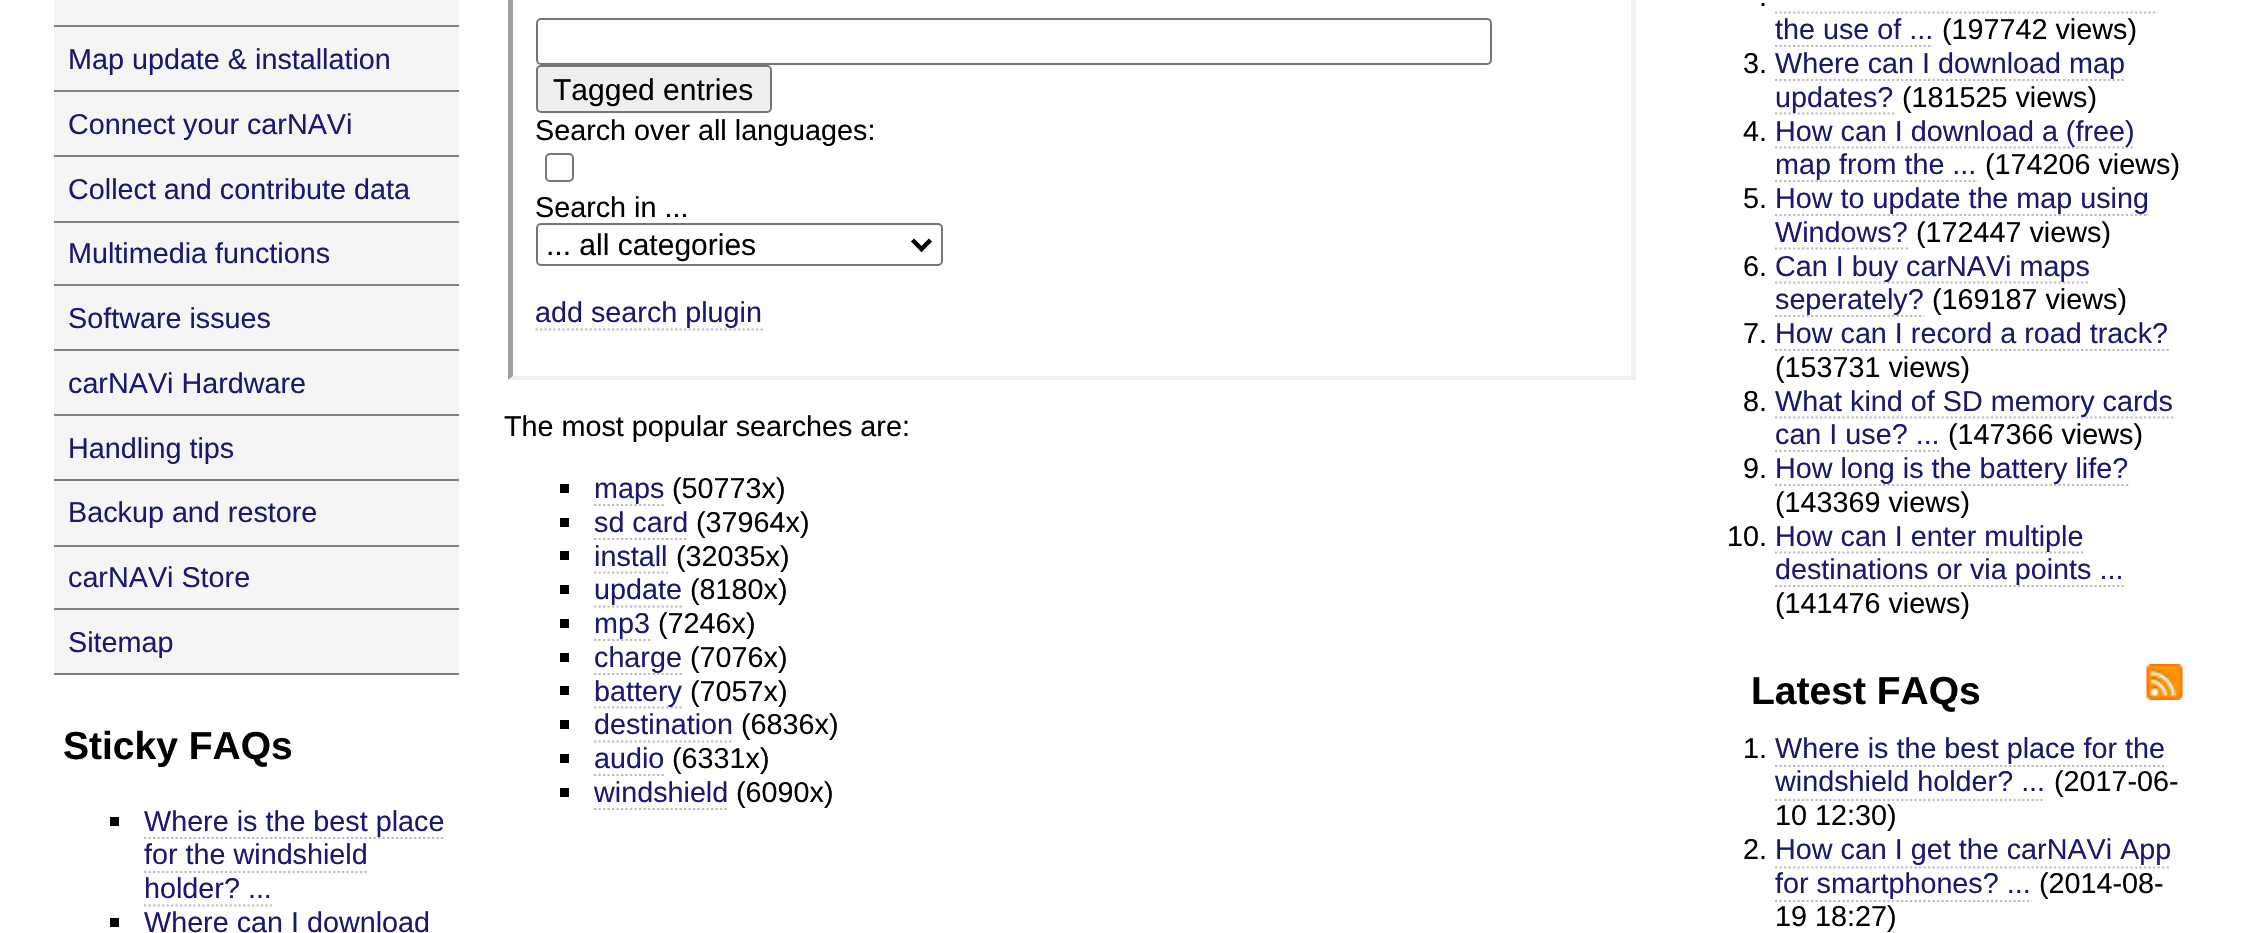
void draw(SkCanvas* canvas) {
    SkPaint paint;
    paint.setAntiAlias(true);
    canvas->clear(0xFFFFFFFF);
    paint.setColor(0xFFF5F5F5);
    canvas->drawRect(SkRect::MakeXYWH(54, 0, 405, 673), paint);
    paint.setColor(0xFF808080);
    canvas->drawRect(SkRect::MakeXYWH(54, 25, 405, 2), paint);
    canvas->drawRect(SkRect::MakeXYWH(54, 90, 405, 2), paint);
    SkFont font1(fontMgr->matchFamilyStyle("Liberation Sans", SkFontStyle::Normal()), 28.75f);
    font1.setSubpixel(true);
    paint.setColor(0xFF191970);
    canvas->drawString("Map update & installation", 68, 69, font1, paint);
    paint.setColor(0xFF808080);
    canvas->drawRect(SkRect::MakeXYWH(54, 155, 405, 2), paint);
    paint.setColor(0xFF191970);
    canvas->drawString("Connect your carNAVi", 68, 134, font1, paint);
    paint.setColor(0xFF808080);
    canvas->drawRect(SkRect::MakeXYWH(54, 221, 405, 2), paint);
    paint.setColor(0xFF191970);
    canvas->drawString("Collect and contribute data", 68, 199, font1, paint);
    paint.setColor(0xFF808080);
    canvas->drawRect(SkRect::MakeXYWH(54, 284, 405, 2), paint);
    paint.setColor(0xFF191970);
    canvas->drawString("Multimedia functions", 68, 263, font1, paint);
    paint.setColor(0xFF808080);
    canvas->drawRect(SkRect::MakeXYWH(54, 349, 405, 2), paint);
    paint.setColor(0xFF191970);
    canvas->drawString("Software issues", 68, 328, font1, paint);
    paint.setColor(0xFF808080);
    canvas->drawRect(SkRect::MakeXYWH(54, 414, 405, 2), paint);
    paint.setColor(0xFF191970);
    canvas->drawString("carNAVi Hardware", 68, 393, font1, paint);
    paint.setColor(0xFF808080);
    canvas->drawRect(SkRect::MakeXYWH(54, 479, 405, 2), paint);
    paint.setColor(0xFF191970);
    canvas->drawString("Handling tips", 68, 458, font1, paint);
    paint.setColor(0xFF808080);
    canvas->drawRect(SkRect::MakeXYWH(54, 545, 405, 2), paint);
    paint.setColor(0xFF191970);
    canvas->drawString("Backup and restore", 68, 522, font1, paint);
    paint.setColor(0xFF808080);
    canvas->drawRect(SkRect::MakeXYWH(54, 608, 405, 2), paint);
    paint.setColor(0xFF191970);
    canvas->drawString("carNAVi Store", 68, 587, font1, paint);
    paint.setColor(0xFF808080);
    canvas->drawRect(SkRect::MakeXYWH(54, 673, 405, 2), paint);
    paint.setColor(0xFF191970);
    canvas->drawString("Sitemap", 68, 652, font1, paint);
    SkFont font2(fontMgr->matchFamilyStyle("Liberation Sans", SkFontStyle::Bold()), 39);
    font2.setSubpixel(true);
    paint.setColor(0xFF000000);
    canvas->drawString("Sticky FAQs", 63, 759, font2, paint);
    canvas->drawRect(SkRect::MakeXYWH(110, 817, 9, 9), paint);
    paint.setStyle(SkPaint::kStroke_Style);
    paint.setStrokeWidth(2.2f);
    paint.setColor(0xFFBBBBBB);
    paint.setPathEffect(SkDashPathEffect::Make({{2.25f, 2.25f}}, 0));
    canvas->drawPath(SkPathBuilder().moveTo(144, 838).lineTo(445.5f, 838).detach(), paint);
    paint.setPathEffect(nullptr);
    paint.setStyle(SkPaint::kFill_Style);
    paint.setColor(0xFF191970);
    canvas->drawString("Where is the best place", 144, 831, font1, paint);
    canvas->drawString("for the windshield", 144, 864, font1, paint);
    canvas->drawString("holder? ...", 144, 898, font1, paint);
    paint.setStyle(SkPaint::kStroke_Style);
    paint.setColor(0xFFBBBBBB);
    paint.setPathEffect(SkDashPathEffect::Make({{2.25f, 2.25f}}, 0));
    canvas->drawPath(SkPathBuilder().moveTo(144, 872).lineTo(369, 872).detach(), paint);
    paint.setPathEffect(nullptr);
    paint.setPathEffect(SkDashPathEffect::Make({{2.25f, 2.25f}}, 0));
    canvas->drawPath(SkPathBuilder().moveTo(144, 905.5f).lineTo(272, 905.5f).detach(), paint);
    paint.setPathEffect(nullptr);
    paint.setStyle(SkPaint::kFill_Style);
    paint.setColor(0xFF000000);
    canvas->drawRect(SkRect::MakeXYWH(110, 918, 9, 9), paint);
    paint.setColor(0xFF191970);
    canvas->drawString("Where can I download", 144, 932, font1, paint);
    paint.setColor(0xFFEFEFEF);
    canvas->drawPath(SkPathBuilder().moveTo(1636, -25).lineTo(1636, 380).lineTo(1631, 376).lineTo(1631, -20).close().detach(), paint);
    canvas->drawPath(SkPathBuilder().moveTo(1636, 380).lineTo(508, 380).lineTo(513, 376).lineTo(1631, 376).close().detach(), paint);
    paint.setColor(0xFF9F9F9F);
    canvas->drawPath(SkPathBuilder().moveTo(508, 380).lineTo(508, -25).lineTo(513, -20).lineTo(513, 376).close().detach(), paint);
    paint.setStyle(SkPaint::kStroke_Style);
    paint.setStrokeWidth(2);
    paint.setColor(0xFF767676);
    canvas->drawRoundRect(SkRect::MakeXYWH(537, 19, 954, 45), 4, 4, paint);
    paint.setStyle(SkPaint::kFill_Style);
    paint.setColor(0xFFEFEFEF);
    canvas->drawRoundRect(SkRect::MakeXYWH(537, 66, 234, 46), 4, 4, paint);
    paint.setStyle(SkPaint::kStroke_Style);
    paint.setColor(0xFF767676);
    canvas->drawRoundRect(SkRect::MakeXYWH(537, 66, 234, 46), 4, 4, paint);
    SkFont font3(fontMgr->matchFamilyStyle("Liberation Sans", SkFontStyle::Normal()), 30);
    font3.setSubpixel(true);
    paint.setStyle(SkPaint::kFill_Style);
    paint.setColor(0xFF000000);
    canvas->drawString("Tagged entries", 553, 100, font3, paint);
    canvas->drawString("Search over all languages:", 535, 140, font1, paint);
    paint.setStyle(SkPaint::kStroke_Style);
    paint.setColor(0xFF767676);
    canvas->drawRoundRect(SkRect::MakeXYWH(546, 154, 27, 27), 4, 4, paint);
    paint.setStyle(SkPaint::kFill_Style);
    paint.setColor(0xFF000000);
    canvas->drawString("Search in ...", 535, 217, font1, paint);
    paint.setStyle(SkPaint::kStroke_Style);
    paint.setColor(0xFF767676);
    canvas->drawRoundRect(SkRect::MakeXYWH(537, 224, 405, 41), 4, 4, paint);
    paint.setStrokeWidth(4.5f);
    paint.setColor(0xFF000000);
    canvas->drawPath(SkPathBuilder().moveTo(912.5f, 240).lineTo(921.5f, 249).lineTo(930.5f, 240).detach(), paint);
    paint.setStyle(SkPaint::kFill_Style);
    canvas->drawString("... all categories", 546, 255, font3, paint);
    paint.setColor(0xFF191970);
    canvas->drawString("add search plugin", 535, 322, font1, paint);
    paint.setStyle(SkPaint::kStroke_Style);
    paint.setStrokeWidth(2.2f);
    paint.setColor(0xFFBBBBBB);
    paint.setPathEffect(SkDashPathEffect::Make({{2.25f, 2.25f}}, 0));
    canvas->drawPath(SkPathBuilder().moveTo(535.5f, 329.5f).lineTo(763, 329.5f).detach(), paint);
    paint.setPathEffect(nullptr);
    paint.setStyle(SkPaint::kFill_Style);
    paint.setColor(0xFF000000);
    canvas->drawString("The most popular searches are:", 504, 436, font1, paint);
    canvas->drawRect(SkRect::MakeXYWH(560, 484, 9, 9), paint);
    paint.setStyle(SkPaint::kStroke_Style);
    paint.setColor(0xFFBBBBBB);
    paint.setPathEffect(SkDashPathEffect::Make({{2.25f, 2.25f}}, 0));
    canvas->drawPath(SkPathBuilder().moveTo(594, 505).lineTo(664, 505).detach(), paint);
    paint.setPathEffect(nullptr);
    paint.setStyle(SkPaint::kFill_Style);
    paint.setColor(0xFF191970);
    canvas->drawString("maps", 594, 498, font1, paint);
    paint.setColor(0xFF000000);
    canvas->drawString("(50773x)", 672, 498, font1, paint);
    canvas->drawRect(SkRect::MakeXYWH(560, 518, 9, 9), paint);
    paint.setColor(0xFF191970);
    canvas->drawString("sd card", 594, 532, font1, paint);
    paint.setStyle(SkPaint::kStroke_Style);
    paint.setColor(0xFFBBBBBB);
    paint.setPathEffect(SkDashPathEffect::Make({{2.25f, 2.25f}}, 0));
    canvas->drawPath(SkPathBuilder().moveTo(594, 539).lineTo(688.5f, 539).detach(), paint);
    paint.setPathEffect(nullptr);
    paint.setStyle(SkPaint::kFill_Style);
    paint.setColor(0xFF000000);
    canvas->drawString("(37964x)", 696, 532, font1, paint);
    canvas->drawRect(SkRect::MakeXYWH(560, 551, 9, 9), paint);
    paint.setColor(0xFF191970);
    canvas->drawString("install", 594, 566, font1, paint);
    paint.setStyle(SkPaint::kStroke_Style);
    paint.setColor(0xFFBBBBBB);
    paint.setPathEffect(SkDashPathEffect::Make({{2.25f, 2.25f}}, 0));
    canvas->drawPath(SkPathBuilder().moveTo(594, 572.5f).lineTo(668, 572.5f).detach(), paint);
    paint.setPathEffect(nullptr);
    paint.setStyle(SkPaint::kFill_Style);
    paint.setColor(0xFF000000);
    canvas->drawString("(32035x)", 676, 566, font1, paint);
    canvas->drawRect(SkRect::MakeXYWH(560, 585, 9, 9), paint);
    paint.setColor(0xFF191970);
    canvas->drawString("update", 594, 599, font1, paint);
    paint.setStyle(SkPaint::kStroke_Style);
    paint.setColor(0xFFBBBBBB);
    paint.setPathEffect(SkDashPathEffect::Make({{2.25f, 2.25f}}, 0));
    canvas->drawPath(SkPathBuilder().moveTo(594, 606.5f).lineTo(682, 606.5f).detach(), paint);
    paint.setPathEffect(nullptr);
    paint.setStyle(SkPaint::kFill_Style);
    paint.setColor(0xFF000000);
    canvas->drawString("(8180x)", 690, 599, font1, paint);
    canvas->drawRect(SkRect::MakeXYWH(560, 619, 9, 9), paint);
    paint.setStyle(SkPaint::kStroke_Style);
    paint.setColor(0xFFBBBBBB);
    paint.setPathEffect(SkDashPathEffect::Make({{2.25f, 2.25f}}, 0));
    canvas->drawPath(SkPathBuilder().moveTo(594, 640).lineTo(650, 640).detach(), paint);
    paint.setPathEffect(nullptr);
    paint.setStyle(SkPaint::kFill_Style);
    paint.setColor(0xFF191970);
    canvas->drawString("mp3", 594, 633, font1, paint);
    paint.setColor(0xFF000000);
    canvas->drawString("(7246x)", 658, 633, font1, paint);
    canvas->drawRect(SkRect::MakeXYWH(560, 653, 9, 9), paint);
    paint.setStyle(SkPaint::kStroke_Style);
    paint.setColor(0xFFBBBBBB);
    paint.setPathEffect(SkDashPathEffect::Make({{2.25f, 2.25f}}, 0));
    canvas->drawPath(SkPathBuilder().moveTo(594, 674).lineTo(682, 674).detach(), paint);
    paint.setPathEffect(nullptr);
    paint.setStyle(SkPaint::kFill_Style);
    paint.setColor(0xFF191970);
    canvas->drawString("charge", 594, 667, font1, paint);
    paint.setColor(0xFF000000);
    canvas->drawString("(7076x)", 690, 667, font1, paint);
    canvas->drawRect(SkRect::MakeXYWH(560, 686, 9, 9), paint);
    paint.setStyle(SkPaint::kStroke_Style);
    paint.setColor(0xFFBBBBBB);
    paint.setPathEffect(SkDashPathEffect::Make({{2.25f, 2.25f}}, 0));
    canvas->drawPath(SkPathBuilder().moveTo(594, 707.5f).lineTo(682, 707.5f).detach(), paint);
    paint.setPathEffect(nullptr);
    paint.setStyle(SkPaint::kFill_Style);
    paint.setColor(0xFF191970);
    canvas->drawString("battery", 594, 701, font1, paint);
    paint.setColor(0xFF000000);
    canvas->drawString("(7057x)", 690, 701, font1, paint);
    canvas->drawRect(SkRect::MakeXYWH(560, 720, 9, 9), paint);
    paint.setColor(0xFF191970);
    canvas->drawString("destination", 594, 734, font1, paint);
    paint.setStyle(SkPaint::kStroke_Style);
    paint.setColor(0xFFBBBBBB);
    paint.setPathEffect(SkDashPathEffect::Make({{2.25f, 2.25f}}, 0));
    canvas->drawPath(SkPathBuilder().moveTo(594, 741.5f).lineTo(733.5f, 741.5f).detach(), paint);
    paint.setPathEffect(nullptr);
    paint.setStyle(SkPaint::kFill_Style);
    paint.setColor(0xFF000000);
    canvas->drawString("(6836x)", 741, 734, font1, paint);
    canvas->drawRect(SkRect::MakeXYWH(560, 754, 9, 9), paint);
    paint.setColor(0xFF191970);
    canvas->drawString("audio", 594, 768, font1, paint);
    paint.setStyle(SkPaint::kStroke_Style);
    paint.setColor(0xFFBBBBBB);
    paint.setPathEffect(SkDashPathEffect::Make({{2.25f, 2.25f}}, 0));
    canvas->drawPath(SkPathBuilder().moveTo(594, 775).lineTo(664, 775).detach(), paint);
    paint.setPathEffect(nullptr);
    paint.setStyle(SkPaint::kFill_Style);
    paint.setColor(0xFF000000);
    canvas->drawString("(6331x)", 672, 768, font1, paint);
    canvas->drawRect(SkRect::MakeXYWH(560, 788, 9, 9), paint);
    paint.setColor(0xFF191970);
    canvas->drawString("windshield", 594, 802, font1, paint);
    paint.setStyle(SkPaint::kStroke_Style);
    paint.setColor(0xFFBBBBBB);
    paint.setPathEffect(SkDashPathEffect::Make({{2.25f, 2.25f}}, 0));
    canvas->drawPath(SkPathBuilder().moveTo(594, 809).lineTo(729, 809).detach(), paint);
    paint.setPathEffect(nullptr);
    paint.setStyle(SkPaint::kFill_Style);
    paint.setColor(0xFF000000);
    canvas->drawString("(6090x)", 736, 802, font1, paint);
    canvas->drawString(".", 1759, 6, font1, paint);
    paint.setColor(0xFF191970);
    canvas->drawString("the use of ...", 1775, 39, font1, paint);
    paint.setStyle(SkPaint::kStroke_Style);
    paint.setColor(0xFFBBBBBB);
    paint.setPathEffect(SkDashPathEffect::Make({{2.25f, 2.25f}}, 0));
    canvas->drawPath(SkPathBuilder().moveTo(1775, 12.5f).lineTo(2158, 12.5f).detach(), paint);
    paint.setPathEffect(nullptr);
    paint.setPathEffect(SkDashPathEffect::Make({{2.25f, 2.25f}}, 0));
    canvas->drawPath(SkPathBuilder().moveTo(1775, 46).lineTo(1933, 46).detach(), paint);
    paint.setPathEffect(nullptr);
    paint.setStyle(SkPaint::kFill_Style);
    paint.setColor(0xFF000000);
    canvas->drawString("(197742 views)", 1942, 39, font1, paint);
    canvas->drawString("3.", 1743, 73, font1, paint);
    paint.setStyle(SkPaint::kStroke_Style);
    paint.setColor(0xFFBBBBBB);
    paint.setPathEffect(SkDashPathEffect::Make({{2.25f, 2.25f}}, 0));
    canvas->drawPath(SkPathBuilder().moveTo(1775, 80).lineTo(2126, 80).detach(), paint);
    paint.setPathEffect(nullptr);
    paint.setStyle(SkPaint::kFill_Style);
    paint.setColor(0xFF191970);
    canvas->drawString("Where can I download map", 1775, 73, font1, paint);
    paint.setStyle(SkPaint::kStroke_Style);
    paint.setColor(0xFFBBBBBB);
    paint.setPathEffect(SkDashPathEffect::Make({{2.25f, 2.25f}}, 0));
    canvas->drawPath(SkPathBuilder().moveTo(1775, 113.5f).lineTo(1894.5f, 113.5f).detach(), paint);
    paint.setPathEffect(nullptr);
    paint.setStyle(SkPaint::kFill_Style);
    paint.setColor(0xFF191970);
    canvas->drawString("updates?", 1775, 107, font1, paint);
    paint.setColor(0xFF000000);
    canvas->drawString("(181525 views)", 1902, 107, font1, paint);
    canvas->drawString("4.", 1743, 141, font1, paint);
    paint.setStyle(SkPaint::kStroke_Style);
    paint.setColor(0xFFBBBBBB);
    paint.setPathEffect(SkDashPathEffect::Make({{2.25f, 2.25f}}, 0));
    canvas->drawPath(SkPathBuilder().moveTo(1775, 147.5f).lineTo(2135, 147.5f).detach(), paint);
    paint.setPathEffect(nullptr);
    paint.setStyle(SkPaint::kFill_Style);
    paint.setColor(0xFF191970);
    canvas->drawString("How can I download a (free)", 1775, 141, font1, paint);
    paint.setStyle(SkPaint::kStroke_Style);
    paint.setColor(0xFFBBBBBB);
    paint.setPathEffect(SkDashPathEffect::Make({{2.25f, 2.25f}}, 0));
    canvas->drawPath(SkPathBuilder().moveTo(1775, 181).lineTo(1978, 181).detach(), paint);
    paint.setPathEffect(nullptr);
    paint.setStyle(SkPaint::kFill_Style);
    paint.setColor(0xFF191970);
    canvas->drawString("map from the ...", 1775, 174, font1, paint);
    paint.setColor(0xFF000000);
    canvas->drawString("(174206 views)", 1985, 174, font1, paint);
    canvas->drawString("5.", 1743, 208, font1, paint);
    paint.setStyle(SkPaint::kStroke_Style);
    paint.setColor(0xFFBBBBBB);
    paint.setPathEffect(SkDashPathEffect::Make({{2.25f, 2.25f}}, 0));
    canvas->drawPath(SkPathBuilder().moveTo(1775, 215).lineTo(2149, 215).detach(), paint);
    paint.setPathEffect(nullptr);
    paint.setStyle(SkPaint::kFill_Style);
    paint.setColor(0xFF191970);
    canvas->drawString("How to update the map using", 1775, 208, font1, paint);
    canvas->drawString("Windows?", 1775, 242, font1, paint);
    paint.setStyle(SkPaint::kStroke_Style);
    paint.setColor(0xFFBBBBBB);
    paint.setPathEffect(SkDashPathEffect::Make({{2.25f, 2.25f}}, 0));
    canvas->drawPath(SkPathBuilder().moveTo(1775, 248.5f).lineTo(1908, 248.5f).detach(), paint);
    paint.setPathEffect(nullptr);
    paint.setStyle(SkPaint::kFill_Style);
    paint.setColor(0xFF000000);
    canvas->drawString("(172447 views)", 1916, 242, font1, paint);
    canvas->drawString("6.", 1743, 276, font1, paint);
    paint.setStyle(SkPaint::kStroke_Style);
    paint.setColor(0xFFBBBBBB);
    paint.setPathEffect(SkDashPathEffect::Make({{2.25f, 2.25f}}, 0));
    canvas->drawPath(SkPathBuilder().moveTo(1775, 282.5f).lineTo(2090, 282.5f).detach(), paint);
    paint.setPathEffect(nullptr);
    paint.setStyle(SkPaint::kFill_Style);
    paint.setColor(0xFF191970);
    canvas->drawString("Can I buy carNAVi maps", 1775, 276, font1, paint);
    paint.setStyle(SkPaint::kStroke_Style);
    paint.setColor(0xFFBBBBBB);
    paint.setPathEffect(SkDashPathEffect::Make({{2.25f, 2.25f}}, 0));
    canvas->drawPath(SkPathBuilder().moveTo(1775, 316).lineTo(1924, 316).detach(), paint);
    paint.setPathEffect(nullptr);
    paint.setStyle(SkPaint::kFill_Style);
    paint.setColor(0xFF191970);
    canvas->drawString("seperately?", 1775, 309, font1, paint);
    paint.setColor(0xFF000000);
    canvas->drawString("(169187 views)", 1932, 309, font1, paint);
    canvas->drawString("7.", 1743, 343, font1, paint);
    paint.setColor(0xFF191970);
    canvas->drawString("How can I record a road track?", 1775, 343, font1, paint);
    paint.setStyle(SkPaint::kStroke_Style);
    paint.setColor(0xFFBBBBBB);
    paint.setPathEffect(SkDashPathEffect::Make({{2.25f, 2.25f}}, 0));
    canvas->drawPath(SkPathBuilder().moveTo(1775, 350).lineTo(2169, 350).detach(), paint);
    paint.setPathEffect(nullptr);
    paint.setStyle(SkPaint::kFill_Style);
    paint.setColor(0xFF000000);
    canvas->drawString("(153731 views)", 1775, 377, font1, paint);
    canvas->drawString("8.", 1743, 411, font1, paint);
    paint.setStyle(SkPaint::kStroke_Style);
    paint.setColor(0xFFBBBBBB);
    paint.setPathEffect(SkDashPathEffect::Make({{2.25f, 2.25f}}, 0));
    canvas->drawPath(SkPathBuilder().moveTo(1775, 417.5f).lineTo(2173.5f, 417.5f).detach(), paint);
    paint.setPathEffect(nullptr);
    paint.setStyle(SkPaint::kFill_Style);
    paint.setColor(0xFF191970);
    canvas->drawString("What kind of SD memory cards", 1775, 411, font1, paint);
    canvas->drawString("can I use? ...", 1775, 444, font1, paint);
    paint.setStyle(SkPaint::kStroke_Style);
    paint.setColor(0xFFBBBBBB);
    paint.setPathEffect(SkDashPathEffect::Make({{2.25f, 2.25f}}, 0));
    canvas->drawPath(SkPathBuilder().moveTo(1775, 451).lineTo(1939.5f, 451).detach(), paint);
    paint.setPathEffect(nullptr);
    paint.setStyle(SkPaint::kFill_Style);
    paint.setColor(0xFF000000);
    canvas->drawString("(147366 views)", 1948, 444, font1, paint);
    canvas->drawString("9.", 1743, 478, font1, paint);
    paint.setStyle(SkPaint::kStroke_Style);
    paint.setColor(0xFFBBBBBB);
    paint.setPathEffect(SkDashPathEffect::Make({{2.25f, 2.25f}}, 0));
    canvas->drawPath(SkPathBuilder().moveTo(1775, 485).lineTo(2128.5f, 485).detach(), paint);
    paint.setPathEffect(nullptr);
    paint.setStyle(SkPaint::kFill_Style);
    paint.setColor(0xFF191970);
    canvas->drawString("How long is the battery life?", 1775, 478, font1, paint);
    paint.setColor(0xFF000000);
    canvas->drawString("(143369 views)", 1775, 512, font1, paint);
    canvas->drawString("10.", 1727, 546, font1, paint);
    paint.setStyle(SkPaint::kStroke_Style);
    paint.setColor(0xFFBBBBBB);
    paint.setPathEffect(SkDashPathEffect::Make({{2.25f, 2.25f}}, 0));
    canvas->drawPath(SkPathBuilder().moveTo(1775, 552.5f).lineTo(2083.5f, 552.5f).detach(), paint);
    paint.setPathEffect(nullptr);
    paint.setStyle(SkPaint::kFill_Style);
    paint.setColor(0xFF191970);
    canvas->drawString("How can I enter multiple", 1775, 546, font1, paint);
    paint.setStyle(SkPaint::kStroke_Style);
    paint.setColor(0xFFBBBBBB);
    paint.setPathEffect(SkDashPathEffect::Make({{2.25f, 2.25f}}, 0));
    canvas->drawPath(SkPathBuilder().moveTo(1775, 586).lineTo(2124, 586).detach(), paint);
    paint.setPathEffect(nullptr);
    paint.setStyle(SkPaint::kFill_Style);
    paint.setColor(0xFF191970);
    canvas->drawString("destinations or via points ...", 1775, 579, font1, paint);
    paint.setColor(0xFF000000);
    canvas->drawString("(141476 views)", 1775, 613, font1, paint);
    canvas->drawString("Latest FAQs", 1751, 704, font2, paint);
    canvas->drawImageRect(SkImages::DeferredFromEncodedData(SkData::MakeFromFileName("img1.png")), SkRect::MakeXYWH(2146, 664, 37, 36), SkSamplingOptions());
    canvas->drawString("1.", 1743, 758, font1, paint);
    paint.setColor(0xFF191970);
    canvas->drawString("Where is the best place for the", 1775, 758, font1, paint);
    canvas->drawString("windshield holder? ...", 1775, 791, font1, paint);
    paint.setStyle(SkPaint::kStroke_Style);
    paint.setColor(0xFFBBBBBB);
    paint.setPathEffect(SkDashPathEffect::Make({{2.25f, 2.25f}}, 0));
    canvas->drawPath(SkPathBuilder().moveTo(1775, 766).lineTo(2167, 766).detach(), paint);
    paint.setPathEffect(nullptr);
    paint.setPathEffect(SkDashPathEffect::Make({{2.25f, 2.25f}}, 0));
    canvas->drawPath(SkPathBuilder().moveTo(1775, 800).lineTo(2045, 800).detach(), paint);
    paint.setPathEffect(nullptr);
    paint.setStyle(SkPaint::kFill_Style);
    paint.setColor(0xFF000000);
    canvas->drawString("(2017-06-", 2054, 791, font1, paint);
    canvas->drawString("10 12:30)", 1775, 825, font1, paint);
    canvas->drawString("2.", 1743, 859, font1, paint);
    paint.setColor(0xFF191970);
    canvas->drawString("How can I get the carNAVi App", 1775, 859, font1, paint);
    paint.setStyle(SkPaint::kStroke_Style);
    paint.setColor(0xFFBBBBBB);
    paint.setPathEffect(SkDashPathEffect::Make({{2.25f, 2.25f}}, 0));
    canvas->drawPath(SkPathBuilder().moveTo(1775, 867.5f).lineTo(2171, 867.5f).detach(), paint);
    paint.setPathEffect(nullptr);
    paint.setStyle(SkPaint::kFill_Style);
    paint.setColor(0xFF191970);
    canvas->drawString("for smartphones? ...", 1775, 893, font1, paint);
    paint.setStyle(SkPaint::kStroke_Style);
    paint.setColor(0xFFBBBBBB);
    paint.setPathEffect(SkDashPathEffect::Make({{2.25f, 2.25f}}, 0));
    canvas->drawPath(SkPathBuilder().moveTo(1775, 901).lineTo(2032, 901).detach(), paint);
    paint.setPathEffect(nullptr);
    paint.setStyle(SkPaint::kFill_Style);
    paint.setColor(0xFF000000);
    canvas->drawString("(2014-08-", 2039, 893, font1, paint);
    canvas->drawString("19 18:27)", 1775, 926, font1, paint);
}
